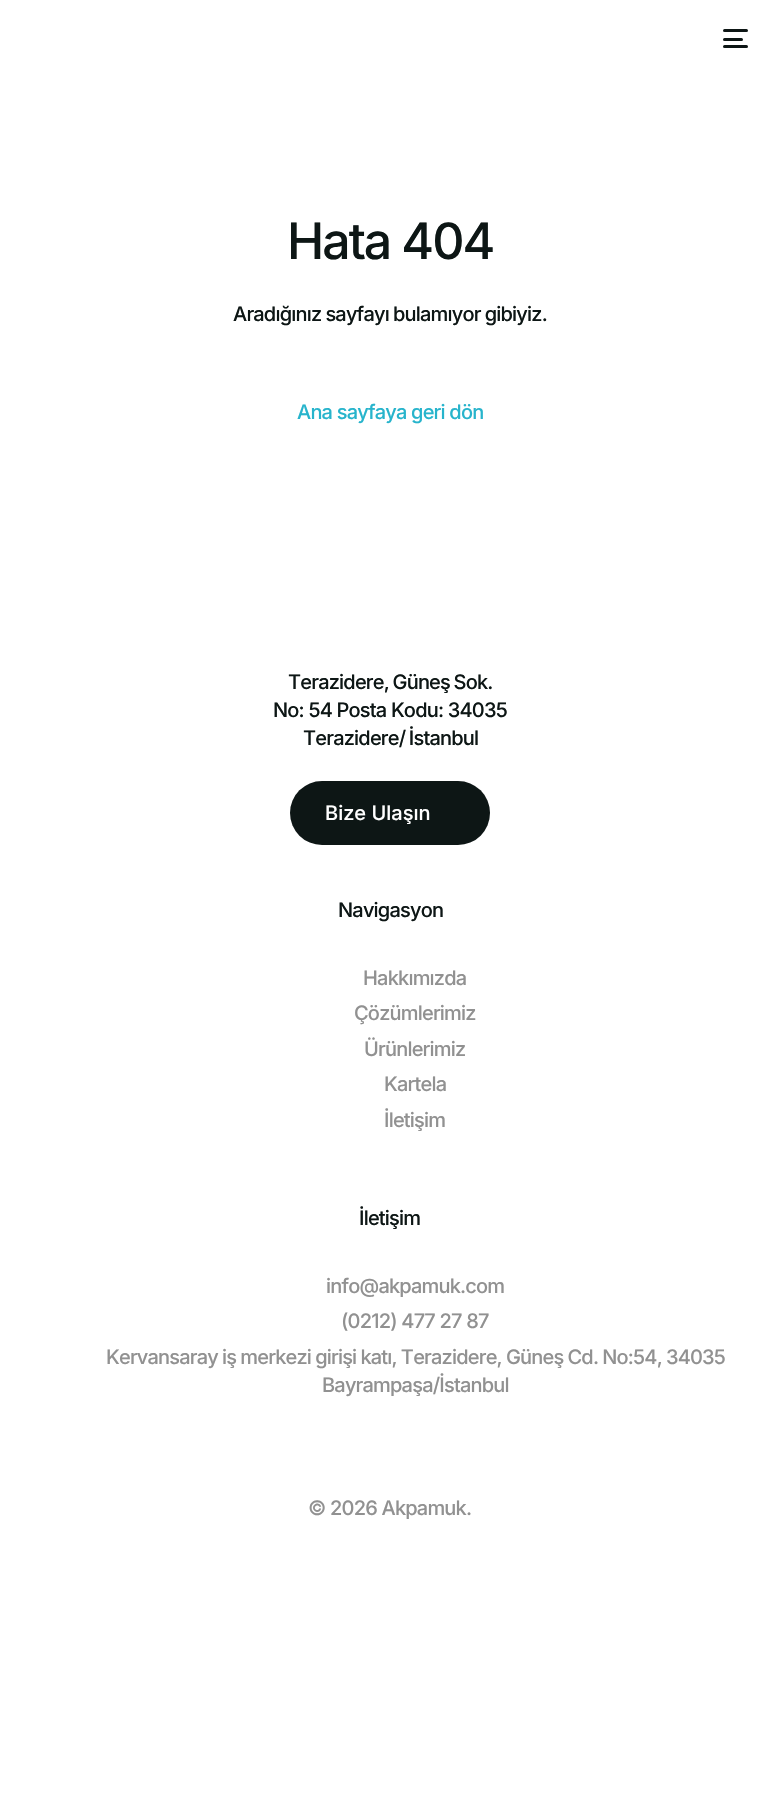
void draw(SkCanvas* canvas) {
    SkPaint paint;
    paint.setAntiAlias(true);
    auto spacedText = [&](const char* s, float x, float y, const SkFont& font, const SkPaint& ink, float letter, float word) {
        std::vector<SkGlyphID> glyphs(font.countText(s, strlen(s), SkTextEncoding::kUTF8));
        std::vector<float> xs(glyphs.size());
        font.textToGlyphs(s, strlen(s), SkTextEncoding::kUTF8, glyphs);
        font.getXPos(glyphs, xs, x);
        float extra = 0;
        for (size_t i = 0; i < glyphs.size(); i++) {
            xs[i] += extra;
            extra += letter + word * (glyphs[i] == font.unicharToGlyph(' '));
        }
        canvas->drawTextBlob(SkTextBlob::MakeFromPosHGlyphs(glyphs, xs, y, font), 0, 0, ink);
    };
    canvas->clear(0xFFFFFFFF);
    paint.setColor(0xFF0D1615);
    canvas->drawRoundRect(SkRect::MakeXYWH(723, 29, 25, 3), 1.5f, 1.5f, paint);
    canvas->drawRoundRect(SkRect::MakeXYWH(723, 38, 20, 3), 1.5f, 1.5f, paint);
    canvas->drawRoundRect(SkRect::MakeXYWH(723, 45, 25, 3), 1.5f, 1.5f, paint);
    SkFont font1(fontMgr->matchFamilyStyle("Inter", SkFontStyle(500, SkFontStyle::kNormal_Width, SkFontStyle::kUpright_Slant)), 50);
    font1.setSubpixel(true);
    spacedText("Hata 404", 287, 259, font1, paint, -2, 0);
    SkFont font2(fontMgr->matchFamilyStyle("Inter", SkFontStyle(500, SkFontStyle::kNormal_Width, SkFontStyle::kUpright_Slant)), 20);
    font2.setSubpixel(true);
    spacedText("Aradığınız sayfayı bulamıyor gibiyiz.", 233, 321, font2, paint, -0.8f, -0.5f);
    paint.setColor(0xFF27B4CC);
    spacedText("Ana sayfaya geri dön", 297, 419, font2, paint, -0.8f, 0);
    paint.setColor(0xFF0D1615);
    spacedText("Terazidere, Güneş Sok.", 288, 689, font2, paint, -0.8f, -1);
    spacedText("No: 54 Posta Kodu: 34035", 273, 717, font2, paint, -0.8f, 0);
    spacedText("Terazidere/ İstanbul", 303, 745, font2, paint, -0.8f, -1);
    canvas->drawRoundRect(SkRect::MakeXYWH(290, 781, 200, 64), 32, 32, paint);
    paint.setColor(0xFFFFFFFF);
    canvas->drawString("Bize Ulaşın", 325, 820, font2, paint);
    paint.setColor(0xFF0D1615);
    spacedText("Navigasyon", 338, 917, font2, paint, -0.8f, 0);
    paint.setColor(0xFF919191);
    spacedText("Hakkımızda", 363, 985, font2, paint, -0.8f, 0);
    spacedText("Çözümlerimiz", 354, 1020, font2, paint, -0.8f, 0);
    spacedText("Ürünlerimiz", 364, 1056, font2, paint, -0.8f, 0);
    spacedText("Kartela", 384, 1091, font2, paint, -0.8f, 0);
    spacedText("İletişim", 384, 1127, font2, paint, -0.8f, 0);
    paint.setColor(0xFF0D1615);
    spacedText("İletişim", 359, 1225, font2, paint, -0.8f, 0);
    paint.setColor(0xFF919191);
    spacedText("info@akpamuk.com", 326, 1293, font2, paint, -0.8f, 0);
    spacedText("(0212) 477 27 87", 341, 1328, font2, paint, -0.8f, 0);
    spacedText("Kervansaray iş merkezi girişi katı, Terazidere, Güneş Cd. No:54, 34035", 106, 1364, font2, paint, -0.8f, -0.5f);
    spacedText("Bayrampaşa/İstanbul", 322, 1392, font2, paint, -0.8f, 0);
    spacedText("© 2026 Akpamuk.", 308, 1515, font2, paint, -0.8f, 0);
}
